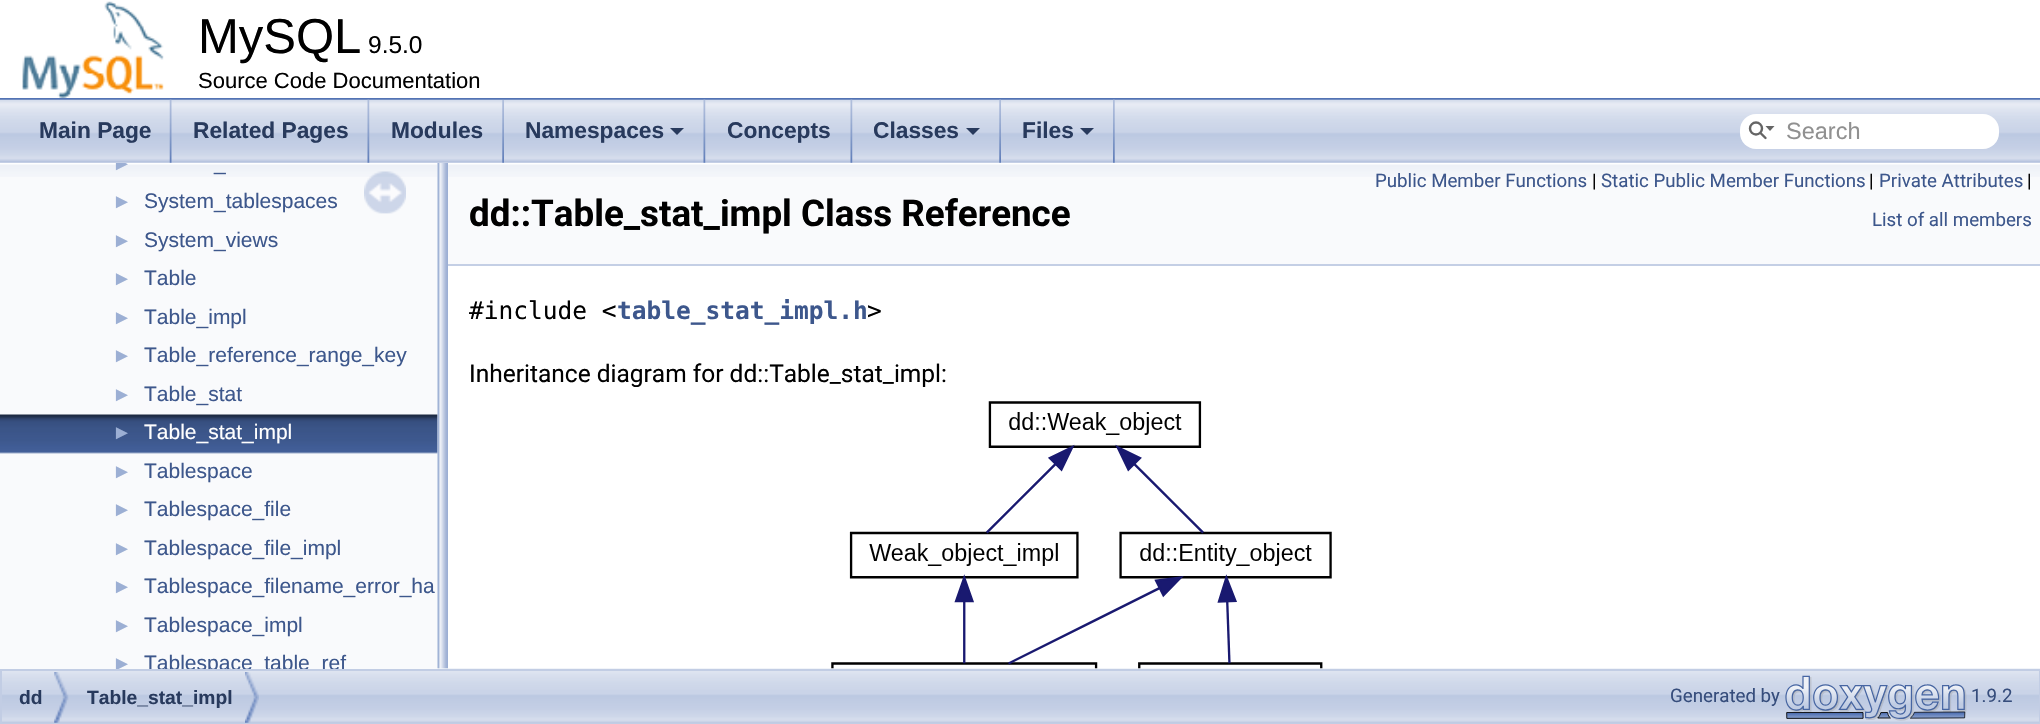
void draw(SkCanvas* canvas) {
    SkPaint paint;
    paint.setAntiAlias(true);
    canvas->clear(0xFFFFFFFF);
    paint.setColor(0xFF5373B4);
    canvas->drawRect(SkRect::MakeXYWH(0, 98, 2040, 2), paint);
    canvas->drawImageRect(SkImages::DeferredFromEncodedData(SkData::MakeFromFileName("img1.png")), SkRect::MakeXYWH(22, 1, 142, 97), SkSamplingOptions());
    SkFont font1(fontMgr->matchFamilyStyle("Liberation Sans", SkFontStyle::Normal()), 49);
    font1.setSubpixel(true);
    paint.setColor(0xFF000000);
    canvas->drawString("MySQL", 198, 53, font1, paint);
    SkFont font2(fontMgr->matchFamilyStyle("Liberation Sans", SkFontStyle::Normal()), 24.5f);
    font2.setSubpixel(true);
    canvas->drawString("9.5.0", 368, 53, font2, paint);
    SkFont font3(fontMgr->matchFamilyStyle("Liberation Sans", SkFontStyle::Normal()), 22);
    font3.setSubpixel(true);
    canvas->drawString("Source Code Documentation", 198, 88, font3, paint);
    canvas->drawImageRect(SkImages::DeferredFromEncodedData(SkData::MakeFromFileName("img13.png")), SkRect::MakeXYWH(831, 401, 501, 268), SkSamplingOptions());
    canvas->drawImageRect(SkImages::DeferredFromEncodedData(SkData::MakeFromFileName("img14.png")), SkRect::MakeXYWH(2, 668, 2038, 55), SkSamplingOptions());
    paint.setColor(0xFFF9FAFC);
    canvas->drawRect(SkRect::MakeXYWH(0, 163, 438, 506), paint);
    canvas->drawImageRect(SkImages::DeferredFromEncodedData(SkData::MakeFromFileName("img8.png")), SkRect::MakeXYWH(0, 163, 438, 14), SkSamplingOptions());
    canvas->drawImageRect(SkImages::DeferredFromEncodedData(SkData::MakeFromFileName("img9.png")), SkRect::MakeXYWH(0, 414, 438, 40), SkSamplingOptions());
    canvas->drawImageRect(SkImages::DeferredFromEncodedData(SkData::MakeFromFileName("img11.png")), SkRect::MakeXYWH(437, 162, 11, 507), SkSamplingOptions());
    canvas->drawImageRect(SkImages::DeferredFromEncodedData(SkData::MakeFromFileName("img2.png")), SkRect::MakeXYWH(0, 99, 2040, 64), SkSamplingOptions());
    canvas->drawImageRect(SkImages::DeferredFromEncodedData(SkData::MakeFromFileName("img3.png")), SkRect::MakeXYWH(169, 99, 3, 64), SkSamplingOptions());
    SkFont font4(fontMgr->matchFamilyStyle("Liberation Sans", SkFontStyle::Bold()), 22.75f);
    font4.setSubpixel(true);
    paint.setColor(0xFF283A5D);
    canvas->drawString("Main Page", 39, 138, font4, paint);
    canvas->drawImageRect(SkImages::DeferredFromEncodedData(SkData::MakeFromFileName("img4.png")), SkRect::MakeXYWH(367, 99, 3, 64), SkSamplingOptions());
    canvas->drawString("Related Pages", 193, 138, font4, paint);
    canvas->drawImageRect(SkImages::DeferredFromEncodedData(SkData::MakeFromFileName("img5.png")), SkRect::MakeXYWH(502, 100, 2, 63), SkSamplingOptions());
    canvas->drawString("Modules", 391, 138, font4, paint);
    canvas->drawImageRect(SkImages::DeferredFromEncodedData(SkData::MakeFromFileName("img4.png")), SkRect::MakeXYWH(703, 99, 3, 64), SkSamplingOptions());
    canvas->drawString("Namespaces", 525, 138, font4, paint);
    canvas->drawPath(SkPathBuilder().moveTo(670, 128).lineTo(684, 128).lineTo(677, 135).close().detach(), paint);
    canvas->drawImageRect(SkImages::DeferredFromEncodedData(SkData::MakeFromFileName("img4.png")), SkRect::MakeXYWH(850, 99, 3, 64), SkSamplingOptions());
    canvas->drawString("Concepts", 727, 138, font4, paint);
    canvas->drawImageRect(SkImages::DeferredFromEncodedData(SkData::MakeFromFileName("img6.png")), SkRect::MakeXYWH(999, 99, 2, 64), SkSamplingOptions());
    canvas->drawString("Classes", 873, 138, font4, paint);
    canvas->drawPath(SkPathBuilder().moveTo(966, 128).lineTo(980, 128).lineTo(973, 135).close().detach(), paint);
    canvas->drawImageRect(SkImages::DeferredFromEncodedData(SkData::MakeFromFileName("img7.png")), SkRect::MakeXYWH(1113, 99, 2, 64), SkSamplingOptions());
    canvas->drawString("Files", 1022, 138, font4, paint);
    canvas->drawPath(SkPathBuilder().moveTo(1080, 128).lineTo(1094, 128).lineTo(1087, 135).close().detach(), paint);
    paint.setColor(0xFFFFFFFF);
    canvas->drawRoundRect(SkRect::MakeXYWH(1740, 114, 259, 35), 16, 16, paint);
    paint.setStyle(SkPaint::kStroke_Style);
    paint.setStrokeWidth(2.4f);
    paint.setColor(0xFF656565);
    canvas->drawCircle(1756, 128.5f, 6, paint);
    paint.setStyle(SkPaint::kFill_Style);
    canvas->drawPath(SkPathBuilder().moveTo(1765.5f, 126).lineTo(1770, 131).lineTo(1774.5f, 126).close().detach(), paint);
    paint.setStyle(SkPaint::kStroke_Style);
    paint.setStrokeCap(SkPaint::kRound_Cap);
    canvas->drawPath(SkPathBuilder().moveTo(1760.5f, 133).lineTo(1765.5f, 138).detach(), paint);
    SkFont font5(fontMgr->matchFamilyStyle("Liberation Sans", SkFontStyle::Normal()), 23.5f);
    font5.setSubpixel(true);
    paint.setStyle(SkPaint::kFill_Style);
    paint.setColor(0xFF909090);
    canvas->drawString("Search", 1786, 139, font5, paint);
    canvas->save();
    canvas->clipRect(SkRect::MakeXYWH(0, 163, 438, 506));
    SkFont font6(fontMgr->matchFamilyStyle("Liberation Sans", SkFontStyle::Normal()), 20);
    font6.setSubpixel(true);
    paint.setColor(0xFF9CAFD4);
    canvas->drawString("►", 112, 170, font6, paint);
    canvas->restore();
    SkFont font7(fontMgr->matchFamilyStyle("Liberation Sans", SkFontStyle::Normal()), 21);
    font7.setSubpixel(true);
    paint.setColor(0xFF3D578C);
    canvas->drawString("_", 214, 170, font7, paint);
    paint.setColor(0xFF9CAFD4);
    canvas->drawString("►", 112, 208, font6, paint);
    paint.setColor(0xFF3D578C);
    canvas->drawString("System_tablespaces", 144, 208, font7, paint);
    paint.setColor(0xFF9CAFD4);
    canvas->drawString("►", 112, 247, font6, paint);
    paint.setColor(0xFF3D578C);
    canvas->drawString("System_views", 144, 247, font7, paint);
    paint.setColor(0xFF9CAFD4);
    canvas->drawString("►", 112, 285, font6, paint);
    paint.setColor(0xFF3D578C);
    canvas->drawString("Table", 144, 285, font7, paint);
    paint.setColor(0xFF9CAFD4);
    canvas->drawString("►", 112, 324, font6, paint);
    paint.setColor(0xFF3D578C);
    canvas->drawString("Table_impl", 144, 324, font7, paint);
    paint.setColor(0xFF9CAFD4);
    canvas->drawString("►", 112, 362, font6, paint);
    paint.setColor(0xFF3D578C);
    canvas->drawString("Table_reference_range_key", 144, 362, font7, paint);
    paint.setColor(0xFF9CAFD4);
    canvas->drawString("►", 112, 401, font6, paint);
    paint.setColor(0xFF3D578C);
    canvas->drawString("Table_stat", 144, 401, font7, paint);
    paint.setColor(0xFF9CAFD4);
    canvas->drawString("►", 112, 439, font6, paint);
    paint.setColor(0xFFFFFFFF);
    canvas->drawString("Table_stat_impl", 144, 439, font7, paint);
    paint.setColor(0xFF9CAFD4);
    canvas->drawString("►", 112, 478, font6, paint);
    paint.setColor(0xFF3D578C);
    canvas->drawString("Tablespace", 144, 478, font7, paint);
    paint.setColor(0xFF9CAFD4);
    canvas->drawString("►", 112, 516, font6, paint);
    paint.setColor(0xFF3D578C);
    canvas->drawString("Tablespace_file", 144, 516, font7, paint);
    paint.setColor(0xFF9CAFD4);
    canvas->drawString("►", 112, 555, font6, paint);
    paint.setColor(0xFF3D578C);
    canvas->drawString("Tablespace_file_impl", 144, 555, font7, paint);
    paint.setColor(0xFF9CAFD4);
    canvas->drawString("►", 112, 593, font6, paint);
    paint.setColor(0xFF3D578C);
    canvas->drawString("Tablespace_filename_error_ha", 144, 593, font7, paint);
    paint.setColor(0xFF9CAFD4);
    canvas->drawString("►", 112, 632, font6, paint);
    paint.setColor(0xFF3D578C);
    canvas->drawString("Tablespace_impl", 144, 632, font7, paint);
    canvas->save();
    canvas->clipRect(SkRect::MakeXYWH(0, 163, 438, 506));
    paint.setColor(0xFF9CAFD4);
    canvas->drawString("►", 112, 670, font6, paint);
    paint.setColor(0xFF3D578C);
    canvas->drawString("Tablespace_table_ref", 144, 670, font7, paint);
    canvas->restore();
    canvas->drawImageRect(SkImages::DeferredFromEncodedData(SkData::MakeFromFileName("img10.png")), SkRect::MakeXYWH(364, 171, 42, 43), SkSamplingOptions());
    paint.setColor(0xFFF9FAFC);
    canvas->drawRect(SkRect::MakeXYWH(448, 177, 1592, 87), paint);
    canvas->drawImageRect(SkImages::DeferredFromEncodedData(SkData::MakeFromFileName("img12.png")), SkRect::MakeXYWH(448, 163, 1592, 14), SkSamplingOptions());
    paint.setColor(0xFFC4CFE5);
    canvas->drawRect(SkRect::MakeXYWH(448, 264, 1592, 2), paint);
    SkFont font8(fontMgr->matchFamilyStyle("Roboto", SkFontStyle::Bold()), 36.75f);
    font8.setSubpixel(true);
    paint.setColor(0xFF000000);
    canvas->drawString("dd::Table_stat_impl Class Reference", 469, 226, font8, paint);
    SkFont font9(fontMgr->matchFamilyStyle("Roboto", SkFontStyle::Normal()), 18.7f);
    font9.setSubpixel(true);
    paint.setColor(0xFF3D578C);
    canvas->drawString("Public Member Functions", 1375, 187, font9, paint);
    paint.setColor(0xFF000000);
    canvas->drawString("|", 1592, 187, font9, paint);
    paint.setColor(0xFF3D578C);
    canvas->drawString("Static Public Member Functions", 1601, 187, font9, paint);
    paint.setColor(0xFF000000);
    canvas->drawString("|", 1869, 187, font9, paint);
    paint.setColor(0xFF3D578C);
    canvas->drawString("Private Attributes", 1879, 187, font9, paint);
    paint.setColor(0xFF000000);
    canvas->drawString("|", 2027, 187, font9, paint);
    paint.setColor(0xFF3D578C);
    canvas->drawString("List of all members", 1872, 226, font9, paint);
    SkFont font10(fontMgr->matchFamilyStyle("DejaVu Sans Mono", SkFontStyle::Normal()), 24.5f);
    font10.setSubpixel(true);
    paint.setColor(0xFF000000);
    canvas->drawString("#include <", 469, 319, font10, paint);
    SkFont font11(fontMgr->matchFamilyStyle("DejaVu Sans Mono", SkFontStyle::Bold()), 24.5f);
    font11.setSubpixel(true);
    paint.setColor(0xFF3D578C);
    canvas->drawString("table_stat_impl.h", 617, 319, font11, paint);
    paint.setColor(0xFF000000);
    canvas->drawString(">", 867, 319, font10, paint);
    SkFont font12(fontMgr->matchFamilyStyle("Roboto", SkFontStyle::Normal()), 24.5f);
    font12.setSubpixel(true);
    canvas->drawString("Inheritance diagram for dd::Table_stat_impl:", 469, 382, font12, paint);
    paint.setStyle(SkPaint::kStroke_Style);
    paint.setStrokeWidth(2);
    paint.setStrokeCap(SkPaint::kButt_Cap);
    paint.setColor(0xFFC2CDE4);
    canvas->drawRect(SkRect::MakeXYWH(1, 670, 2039, 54), paint);
    canvas->drawImageRect(SkImages::DeferredFromEncodedData(SkData::MakeFromFileName("img15.png")), SkRect::MakeXYWH(54, 672, 15, 51), SkSamplingOptions());
    SkFont font13(fontMgr->matchFamilyStyle("Liberation Sans", SkFontStyle::Bold()), 19.25f);
    font13.setSubpixel(true);
    paint.setStyle(SkPaint::kFill_Style);
    paint.setColor(0xFF283A5D);
    canvas->drawString("dd", 19, 704, font13, paint);
    canvas->drawImageRect(SkImages::DeferredFromEncodedData(SkData::MakeFromFileName("img16.png")), SkRect::MakeXYWH(245, 672, 14, 51), SkSamplingOptions());
    canvas->drawString("Table_stat_impl", 87, 704, font13, paint);
    paint.setColor(0xFF364D7C);
    canvas->drawString("Generated by", 1670, 702, font9, paint);
    canvas->drawImageRect(SkImages::DeferredFromEncodedData(SkData::MakeFromFileName("img17.png")), SkRect::MakeXYWH(1785, 675, 182, 46), SkSamplingOptions());
    canvas->drawString("1.9.2", 1971, 702, font9, paint);
}
